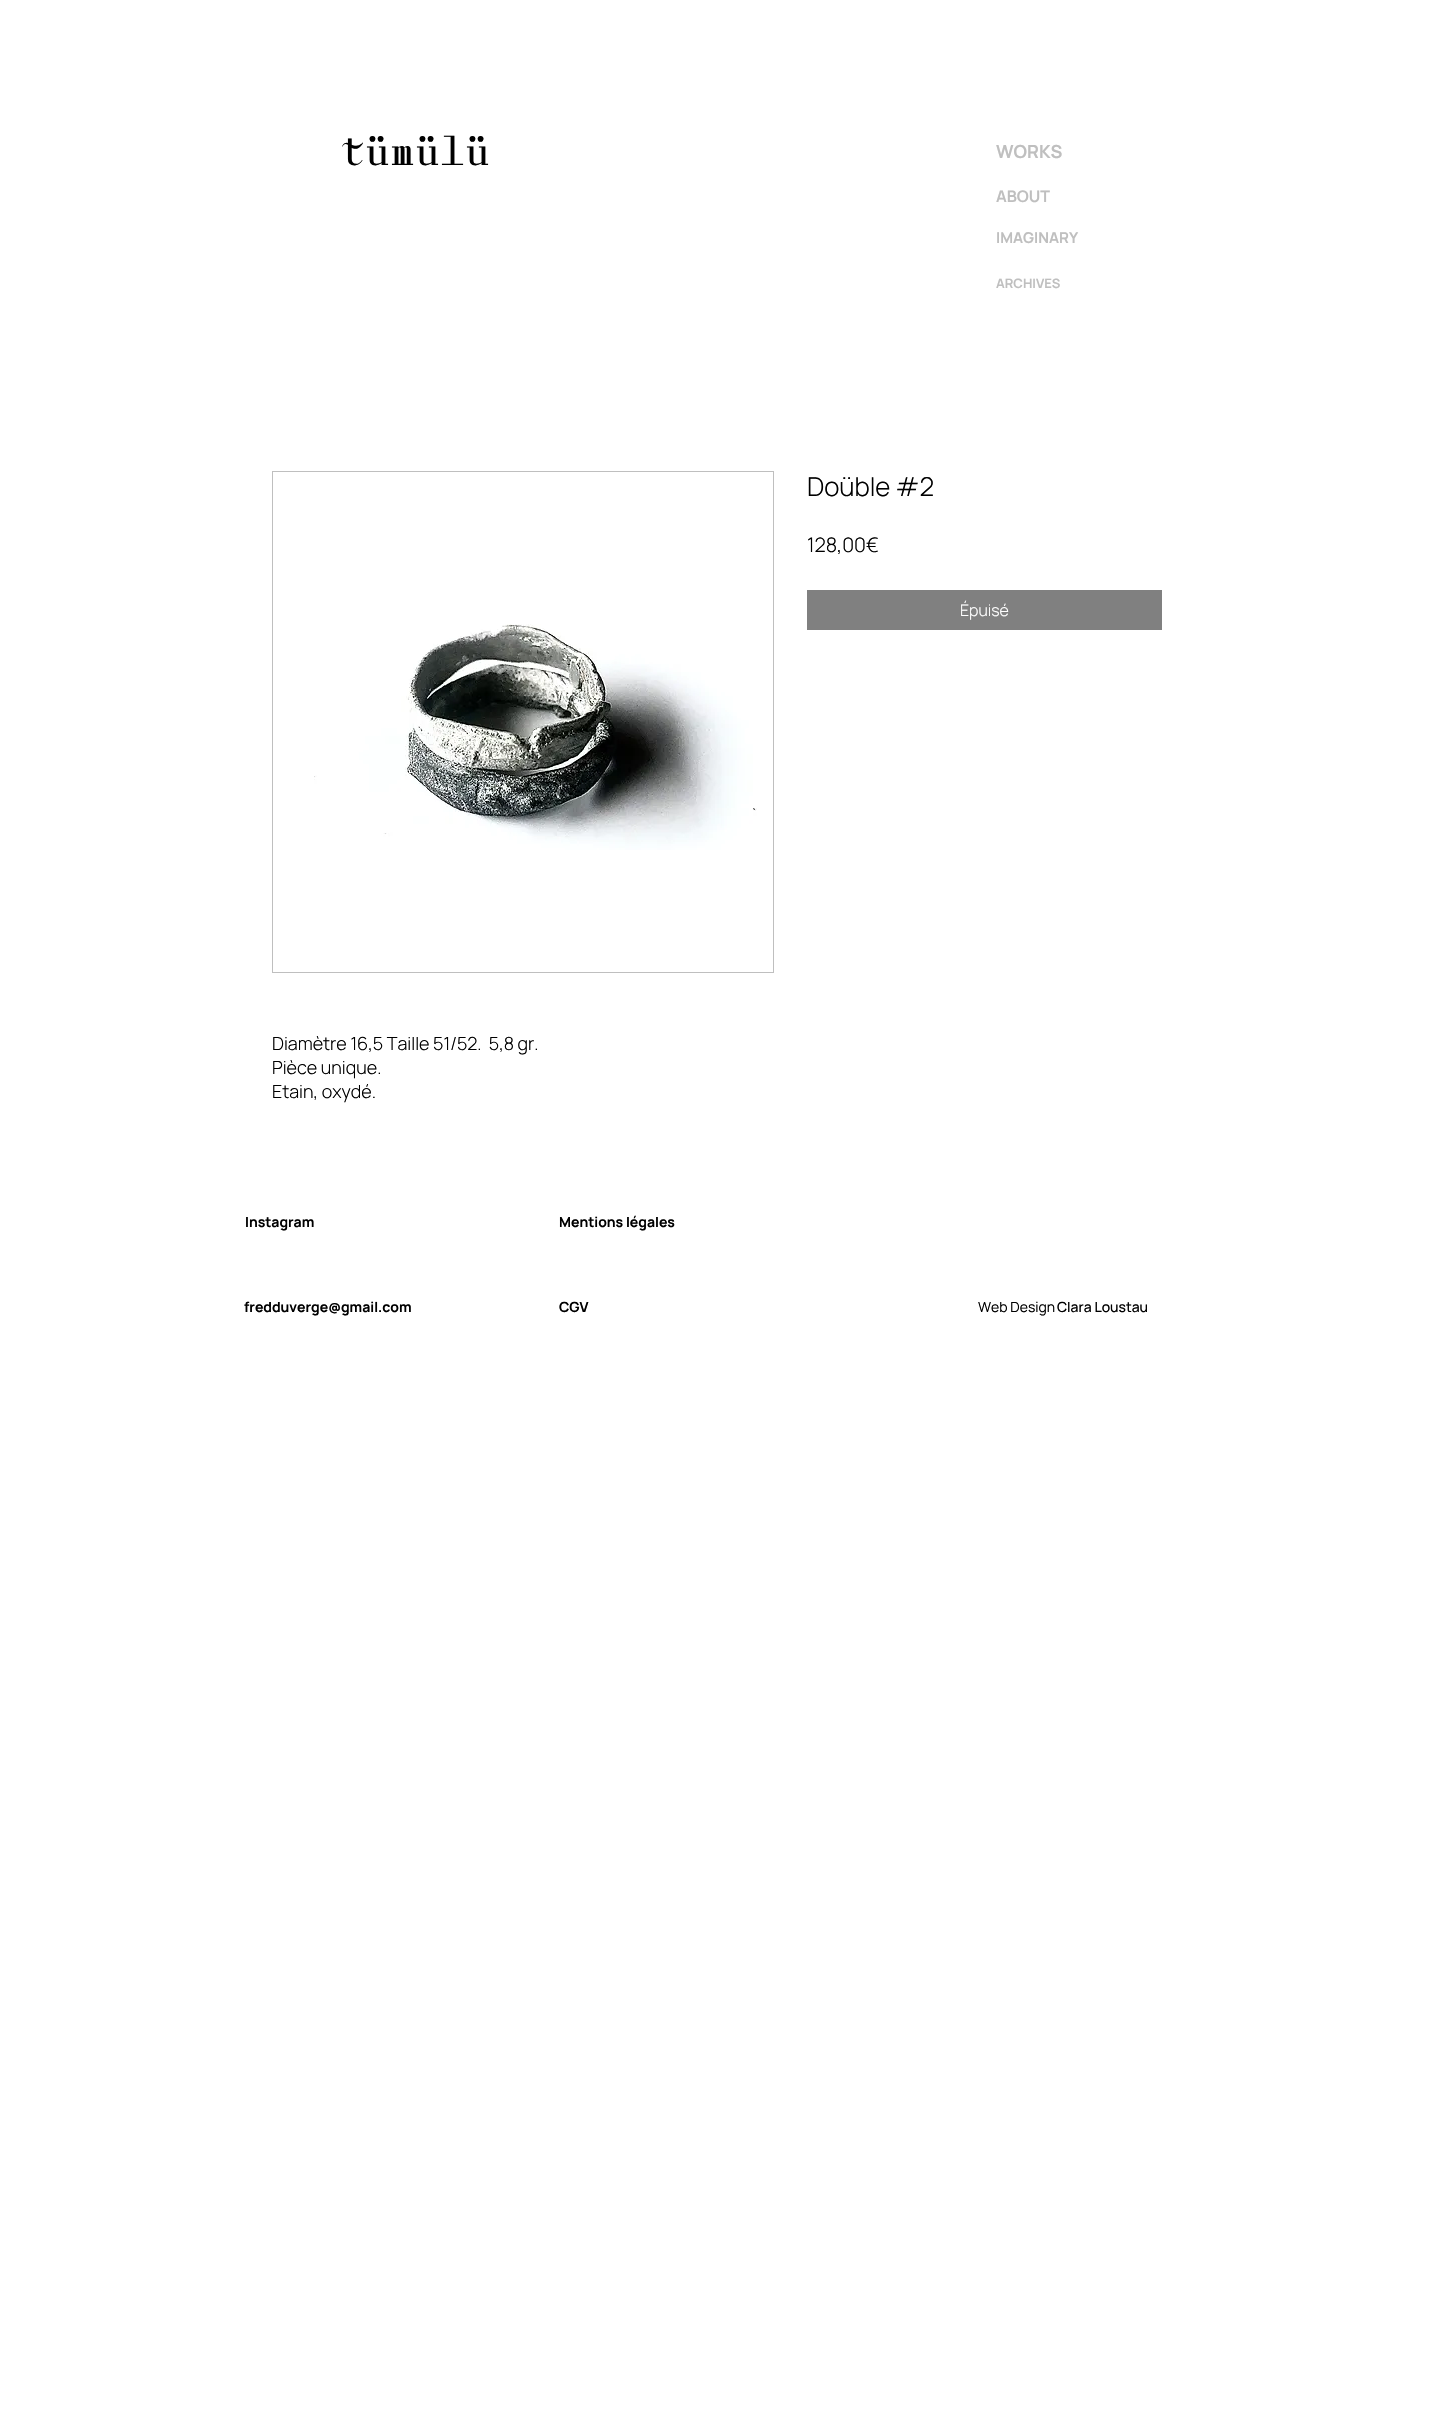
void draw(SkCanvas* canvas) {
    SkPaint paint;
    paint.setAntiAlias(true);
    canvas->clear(0xFFFFFFFF);
    SkFont font1(fontMgr->matchFamilyStyle("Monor", SkFontStyle::Bold()), 43);
    font1.setSubpixel(true);
    paint.setColor(0xFF000000);
    canvas->drawString("tümülü", 340, 165, font1, paint);
    SkFont font2(fontMgr->matchFamilyStyle("Manrope", SkFontStyle::Bold()), 16);
    font2.setSubpixel(true);
    paint.setColor(0xFFBFBFBF);
    canvas->drawString("ABOUT", 996, 202, font2, paint);
    SkFont font3(fontMgr->matchFamilyStyle("Manrope", SkFontStyle::Bold()), 18);
    font3.setSubpixel(true);
    canvas->drawString("WORKS", 996, 158, font3, paint);
    SkFont font4(fontMgr->matchFamilyStyle("Manrope", SkFontStyle::Bold()), 15);
    font4.setSubpixel(true);
    canvas->drawString("IMAGINARY", 996, 243, font4, paint);
    SkFont font5(fontMgr->matchFamilyStyle("Manrope", SkFontStyle::Bold()), 13);
    font5.setSubpixel(true);
    canvas->drawString("ARCHIVES", 996, 288, font5, paint);
    SkFont font6(fontMgr->matchFamilyStyle("Manrope", SkFontStyle(300, SkFontStyle::kNormal_Width, SkFontStyle::kUpright_Slant)), 26);
    font6.setSubpixel(true);
    paint.setColor(0xFF000000);
    canvas->drawString("Doüble #2", 807, 496, font6, paint);
    SkFont font7(fontMgr->matchFamilyStyle("Manrope", SkFontStyle(300, SkFontStyle::kNormal_Width, SkFontStyle::kUpright_Slant)), 20);
    font7.setSubpixel(true);
    canvas->drawString("128,00€", 807, 552, font7, paint);
    paint.setColor(0xFF808080);
    canvas->drawRect(SkRect::MakeXYWH(807, 590, 355, 40), paint);
    SkFont font8(fontMgr->matchFamilyStyle("Manrope", SkFontStyle(300, SkFontStyle::kNormal_Width, SkFontStyle::kUpright_Slant)), 16);
    font8.setSubpixel(true);
    paint.setColor(0xFFFFFFFF);
    canvas->drawString("Épuisé", 960, 616, font8, paint);
    paint.setStyle(SkPaint::kStroke_Style);
    paint.setStrokeWidth(1);
    paint.setColor(0xFFBFBFBF);
    canvas->drawRect(SkRect::MakeXYWH(272.5f, 471.5f, 501, 501), paint);
    canvas->drawImageRect(SkImages::DeferredFromEncodedData(SkData::MakeFromFileName("img1.png")), SkRect::MakeXYWH(314, 624, 443, 226), SkSamplingOptions());
    SkFont font9(fontMgr->matchFamilyStyle("Manrope", SkFontStyle(300, SkFontStyle::kNormal_Width, SkFontStyle::kUpright_Slant)), 18);
    font9.setSubpixel(true);
    paint.setStyle(SkPaint::kFill_Style);
    paint.setColor(0xFF000000);
    canvas->drawString("Diamètre 16,5 Taille 51/52.  5,8 gr.", 272, 1050, font9, paint);
    canvas->drawString("Pièce unique.", 272, 1074, font9, paint);
    canvas->drawString("Etain, oxydé.", 272, 1098, font9, paint);
    SkFont font10(fontMgr->matchFamilyStyle("Manrope", SkFontStyle::Bold()), 14);
    font10.setSubpixel(true);
    canvas->drawString("Instagram", 245, 1227, font10, paint);
    canvas->drawString("Mentions légales", 559, 1227, font10, paint);
    canvas->drawString("fredduverge@gmail.com", 244, 1312, font10, paint);
    canvas->drawString("CGV", 559, 1312, font10, paint);
    SkFont font11(fontMgr->matchFamilyStyle("Manrope", SkFontStyle::Normal()), 14);
    font11.setSubpixel(true);
    canvas->drawString("Web Design", 978, 1312, font11, paint);
    SkFont font12(fontMgr->matchFamilyStyle("Manrope", SkFontStyle(500, SkFontStyle::kNormal_Width, SkFontStyle::kUpright_Slant)), 14);
    font12.setSubpixel(true);
    canvas->drawString("Clara Loustau", 1057, 1312, font12, paint);
}
